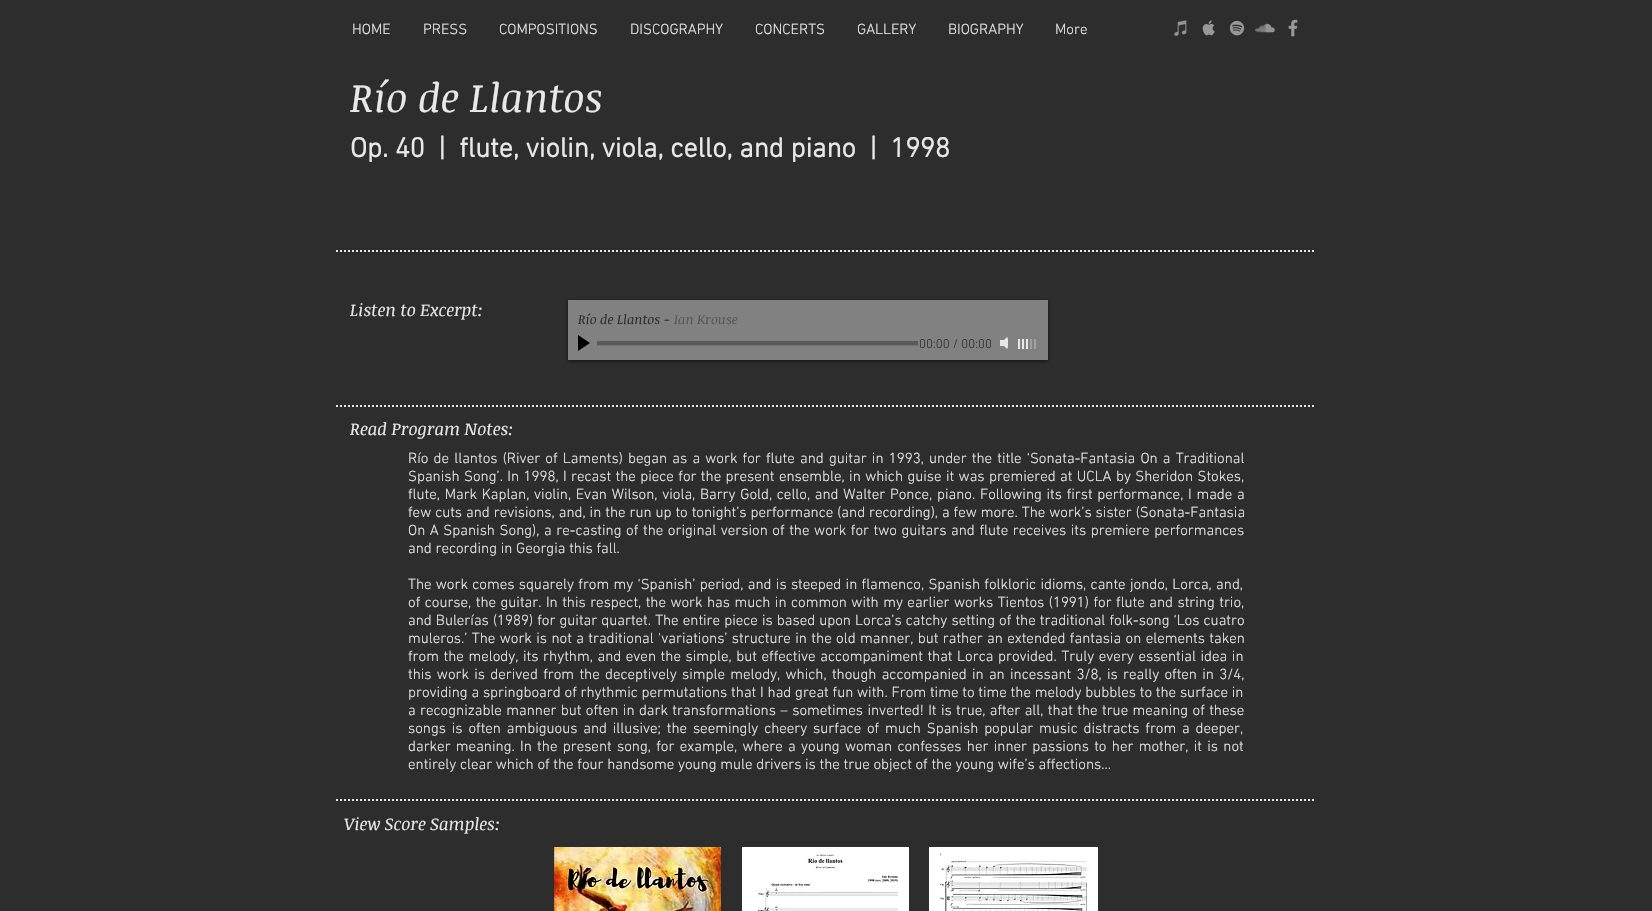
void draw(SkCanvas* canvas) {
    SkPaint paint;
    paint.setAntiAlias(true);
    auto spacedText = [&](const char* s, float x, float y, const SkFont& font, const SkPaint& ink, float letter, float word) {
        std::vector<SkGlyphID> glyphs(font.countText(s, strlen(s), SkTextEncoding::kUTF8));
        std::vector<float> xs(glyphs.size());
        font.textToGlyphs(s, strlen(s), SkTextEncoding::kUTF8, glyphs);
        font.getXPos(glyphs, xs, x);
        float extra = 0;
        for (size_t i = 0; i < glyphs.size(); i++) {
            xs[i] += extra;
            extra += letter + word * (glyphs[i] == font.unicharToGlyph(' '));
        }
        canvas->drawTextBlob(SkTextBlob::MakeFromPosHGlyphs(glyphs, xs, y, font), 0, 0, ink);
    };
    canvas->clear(0xFF2D2D2D);
    SkFont font1(fontMgr->matchFamilyStyle("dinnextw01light", SkFontStyle(300, SkFontStyle::kNormal_Width, SkFontStyle::kUpright_Slant)), 15);
    font1.setSubpixel(true);
    paint.setColor(0xFFE8E8E8);
    canvas->drawString("HOME", 352, 34, font1, paint);
    canvas->drawString("PRESS", 423, 34, font1, paint);
    canvas->drawString("COMPOSITIONS", 499, 34, font1, paint);
    canvas->drawString("DISCOGRAPHY", 630, 34, font1, paint);
    canvas->drawString("CONCERTS", 755, 34, font1, paint);
    canvas->drawString("GALLERY", 857, 34, font1, paint);
    canvas->drawString("BIOGRAPHY", 948, 34, font1, paint);
    canvas->drawString("More", 1055, 34, font1, paint);
    canvas->drawImageRect(SkImages::DeferredFromEncodedData(SkData::MakeFromFileName("img1.png")), SkRect::MakeXYWH(1174, 20, 13, 16), SkSamplingOptions());
    canvas->drawImageRect(SkImages::DeferredFromEncodedData(SkData::MakeFromFileName("img2.png")), SkRect::MakeXYWH(1202, 20, 13, 16), SkSamplingOptions());
    canvas->drawImageRect(SkImages::DeferredFromEncodedData(SkData::MakeFromFileName("img3.png")), SkRect::MakeXYWH(1229, 20, 16, 16), SkSamplingOptions());
    canvas->drawImageRect(SkImages::DeferredFromEncodedData(SkData::MakeFromFileName("img4.png")), SkRect::MakeXYWH(1255, 23, 20, 10), SkSamplingOptions());
    canvas->drawImageRect(SkImages::DeferredFromEncodedData(SkData::MakeFromFileName("img5.png")), SkRect::MakeXYWH(1288, 19, 10, 18), SkSamplingOptions());
    SkFont font2(fontMgr->matchFamilyStyle("Noticia Text", SkFontStyle::Italic()), 40);
    font2.setSubpixel(true);
    canvas->drawString("Río de Llantos", 350, 112, font2, paint);
    SkFont font3(fontMgr->matchFamilyStyle("dinnextw01light", SkFontStyle::Bold()), 28);
    font3.setSubpixel(true);
    canvas->drawString("Op. 40  |  flute, violin, viola, cello, and piano  |  1998", 350, 157, font3, paint);
    paint.setStyle(SkPaint::kStroke_Style);
    paint.setStrokeWidth(2);
    paint.setPathEffect(SkDashPathEffect::Make({{2, 2}}, 0));
    canvas->drawPath(SkPathBuilder().moveTo(336, 251).lineTo(1316, 251).detach(), paint);
    paint.setPathEffect(nullptr);
    SkFont font4(fontMgr->matchFamilyStyle("Noticia Text", SkFontStyle::Italic()), 17);
    font4.setSubpixel(true);
    paint.setStyle(SkPaint::kFill_Style);
    canvas->drawString("Listen to Excerpt:", 350, 316, font4, paint);
    paint.setColor(0x99000000);
    paint.setMaskFilter(SkMaskFilter::MakeBlur(kNormal_SkBlurStyle, 2));
    canvas->drawRect(SkRect::MakeXYWH(568, 301, 480, 60), paint);
    paint.setMaskFilter(nullptr);
    paint.setColor(0xFF818181);
    canvas->drawRect(SkRect::MakeXYWH(568, 300, 480, 60), paint);
    SkFont font5(fontMgr->matchFamilyStyle("Noticia Text", SkFontStyle::Italic()), 13);
    font5.setSubpixel(true);
    paint.setColor(0xFF2D2D2D);
    canvas->drawString("Río de Llantos -", 578, 324, font5, paint);
    paint.setColor(0xFF575757);
    canvas->drawString("Ian Krouse", 674, 324, font5, paint);
    paint.setColor(0xFF000000);
    canvas->drawPath(SkPathBuilder().moveTo(578, 351).lineTo(578, 335).lineTo(590, 343).close().detach(), paint);
    paint.setColor(0xFF5A5A5A);
    canvas->drawRect(SkRect::MakeXYWH(597, 341, 321, 4), paint);
    paint.setColor(0xFF717171);
    canvas->drawRect(SkRect::MakeXYWH(597, 345, 321, 1), paint);
    SkFont font6(fontMgr->matchFamilyStyle("dinnextw01light", SkFontStyle(300, SkFontStyle::kNormal_Width, SkFontStyle::kUpright_Slant)), 13);
    font6.setSubpixel(true);
    paint.setColor(0xFF2D2D2D);
    canvas->drawString("00:00 / 00:00", 919, 348, font6, paint);
    paint.setColor(0xFFE8E8E8);
    canvas->drawPath(SkPathBuilder().moveTo(1001, 343).lineTo(1007, 349).cubicTo(1008.5f, 347.5f, 1008, 345, 1008, 343).cubicTo(1008, 341, 1008.5f, 338.5f, 1007, 337).close().detach(), paint);
    canvas->drawRect(SkRect::MakeXYWH(1000, 340, 4, 6), paint);
    canvas->drawRect(SkRect::MakeXYWH(1018, 339, 2, 10), paint);
    canvas->drawRect(SkRect::MakeXYWH(1022, 339, 2, 10), paint);
    canvas->drawRect(SkRect::MakeXYWH(1026, 339, 2, 10), paint);
    paint.setColor(0xFFA0A0A0);
    canvas->drawRect(SkRect::MakeXYWH(1030, 339, 2, 10), paint);
    canvas->drawRect(SkRect::MakeXYWH(1034, 339, 2, 10), paint);
    paint.setStyle(SkPaint::kStroke_Style);
    paint.setColor(0xFFE8E8E8);
    paint.setPathEffect(SkDashPathEffect::Make({{2, 2}}, 0));
    canvas->drawPath(SkPathBuilder().moveTo(336, 406).lineTo(1316, 406).detach(), paint);
    paint.setPathEffect(nullptr);
    paint.setStyle(SkPaint::kFill_Style);
    canvas->drawString("Read Program Notes:", 350, 435, font4, paint);
    spacedText("Río de llantos (River of Laments) began as a work for flute and guitar in 1993, under the title ‘Sonata-Fantasia On a Traditional", 408, 463, font1, paint, 0, 1.5f);
    spacedText("Spanish Song’. In 1998, I recast the piece for the present ensemble, in which guise it was premiered at UCLA by Sheridon Stokes,", 408, 481, font1, paint, 0, 0.7f);
    spacedText("flute, Mark Kaplan, violin, Evan Wilson, viola, Barry Gold, cello, and Walter Ponce, piano. Following its first performance, I made a", 408, 499, font1, paint, 0, 1);
    spacedText("few cuts and revisions, and, in the run up to tonight’s performance (and recording), a few more. The work’s sister (Sonata-Fantasia", 408, 517, font1, paint, 0, 0.25f);
    spacedText("On A Spanish Song), a re-casting of the original version of the work for two guitars and flute receives its premiere performances", 408, 535, font1, paint, 0, 0.9f);
    canvas->drawString("and recording in Georgia this fall.", 408, 553, font1, paint);
    spacedText("The work comes squarely from my ‘Spanish’ period, and is steeped in flamenco, Spanish folkloric idioms, cante jondo, Lorca, and,", 408, 589, font1, paint, 0, 0.6f);
    spacedText("of course, the guitar. In this respect, the work has much in common with my earlier works Tientos (1991) for flute and string trio,", 408, 607, font1, paint, 0, 0.75f);
    spacedText("and Bulerías (1989) for guitar quartet. The entire piece is based upon Lorca’s catchy setting of the traditional folk-song ‘Los cuatro", 408, 625, font1, paint, 0, 0.4f);
    spacedText("muleros.’ The work is not a traditional ‘variations’ structure in the old manner, but rather an extended fantasia on elements taken", 408, 643, font1, paint, 0, 0.7f);
    spacedText("from the melody, its rhythm, and even the simple, but effective accompaniment that Lorca provided. Truly every essential idea in", 408, 661, font1, paint, 0, 0.9f);
    spacedText("this work is derived from the deceptively simple melody, which, though accompanied in an incessant 3/8, is really often in 3/4,", 408, 679, font1, paint, 0, 1.6f);
    spacedText("providing a springboard of rhythmic permutations that I had great fun with. From time to time the melody bubbles to the surface in", 408, 697, font1, paint, 0, 0.1f);
    spacedText("a recognizable manner but often in dark transformations – sometimes inverted! It is true, after all, that the true meaning of these", 408, 715, font1, paint, 0, 0.7f);
    spacedText("songs is often ambiguous and illusive; the seemingly cheery surface of much Spanish popular music distracts from a deeper,", 408, 733, font1, paint, 0, 2.1f);
    spacedText("darker meaning. In the present song, for example, where a young woman confesses her inner passions to her mother, it is not", 408, 751, font1, paint, 0, 1.6f);
    canvas->drawString("entirely clear which of the four handsome young mule drivers is the true object of the young wife’s affections…", 408, 769, font1, paint);
    paint.setStyle(SkPaint::kStroke_Style);
    paint.setPathEffect(SkDashPathEffect::Make({{2, 2}}, 0));
    canvas->drawPath(SkPathBuilder().moveTo(336, 800).lineTo(1316, 800).detach(), paint);
    paint.setPathEffect(nullptr);
    paint.setStyle(SkPaint::kFill_Style);
    canvas->drawString("View Score Samples:", 344, 830, font4, paint);
    canvas->drawImageRect(SkImages::DeferredFromEncodedData(SkData::MakeFromFileName("img6.png")), SkRect::MakeXYWH(554, 847, 167, 64), SkSamplingOptions());
    canvas->drawImageRect(SkImages::DeferredFromEncodedData(SkData::MakeFromFileName("img7.png")), SkRect::MakeXYWH(742, 847, 167, 64), SkSamplingOptions());
    canvas->drawImageRect(SkImages::DeferredFromEncodedData(SkData::MakeFromFileName("img8.png")), SkRect::MakeXYWH(929, 847, 169, 64), SkSamplingOptions());
}
